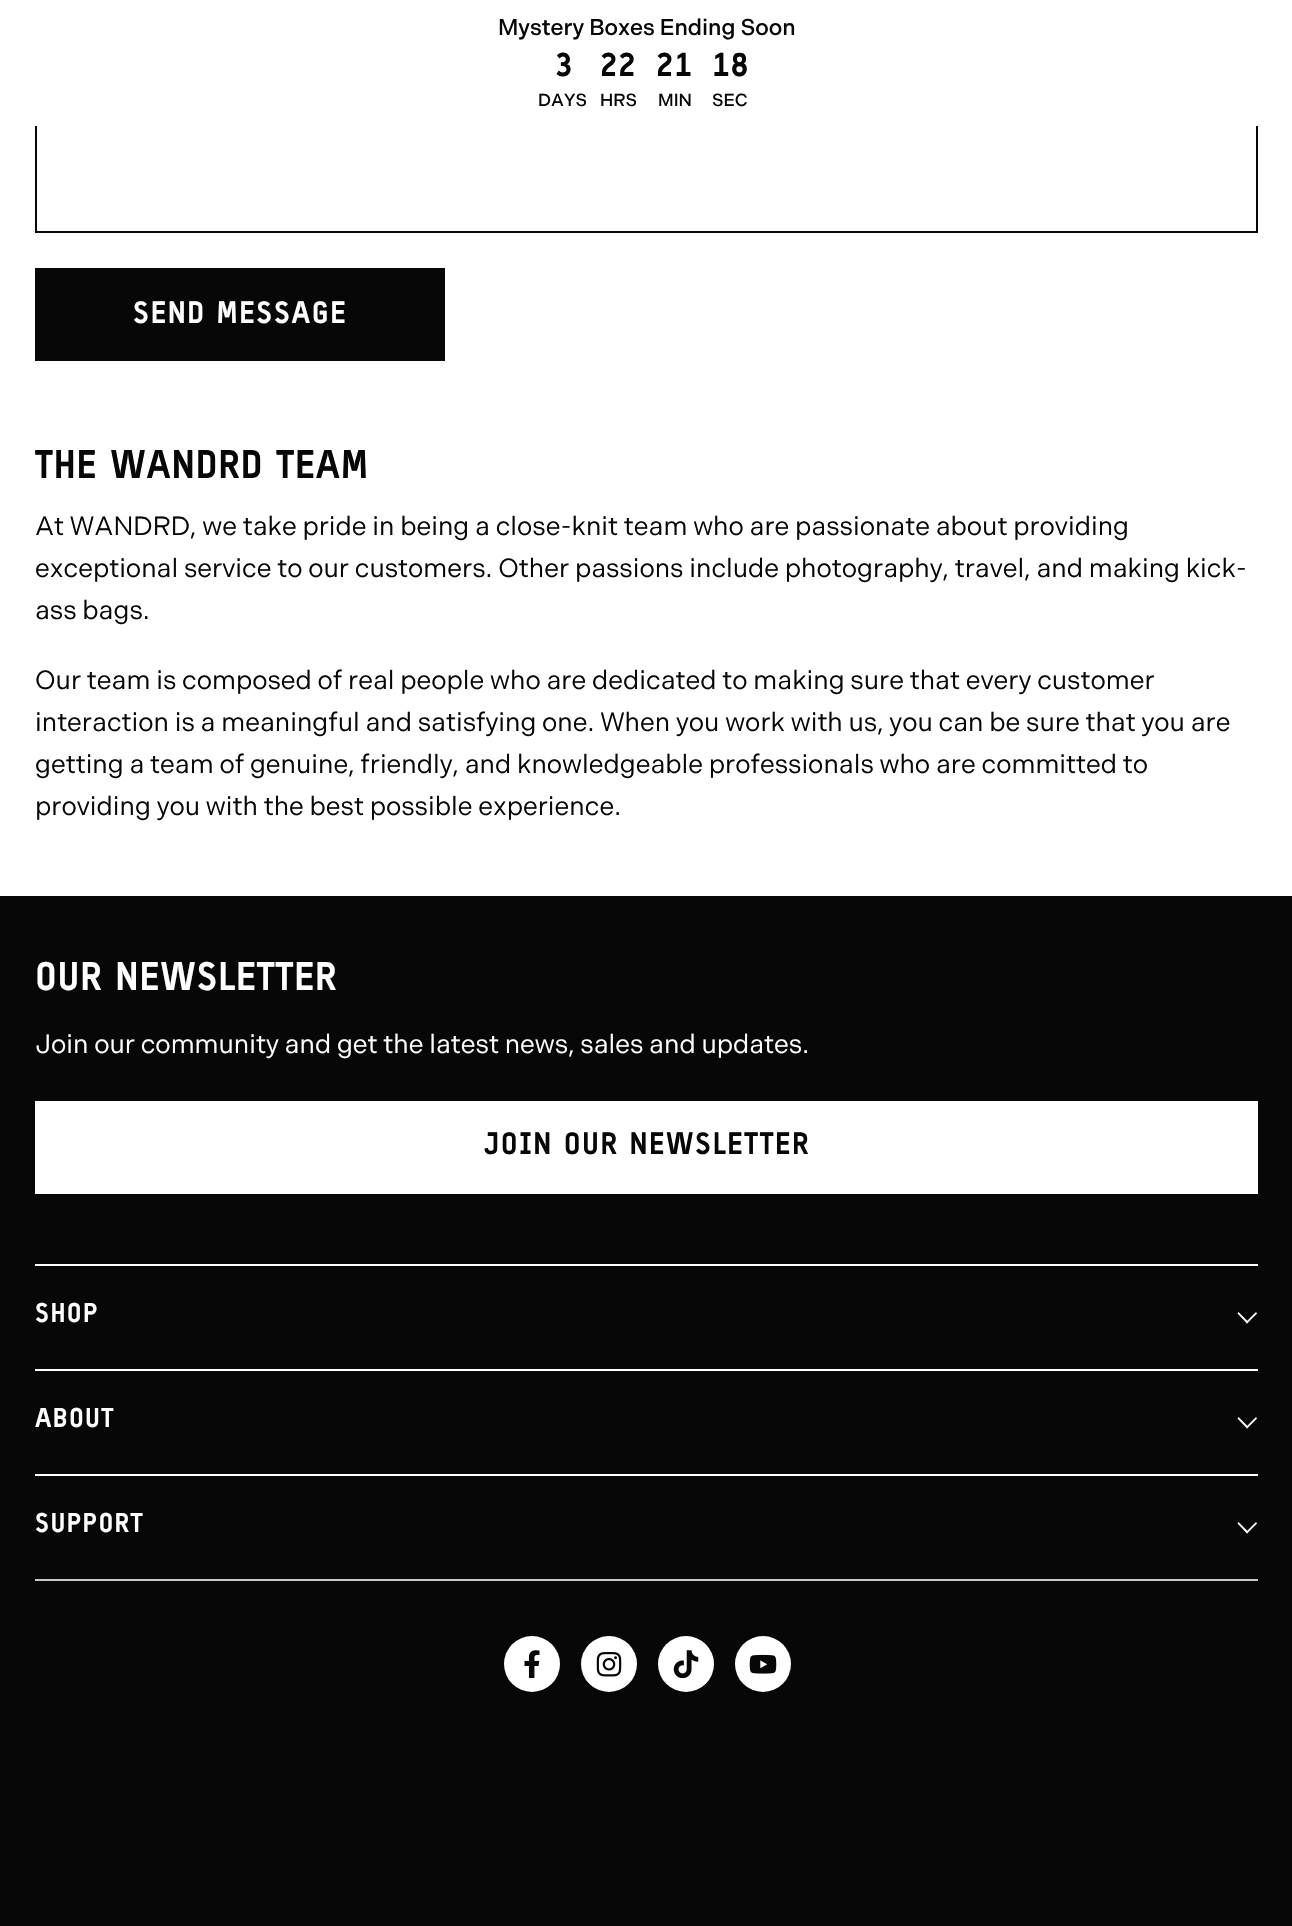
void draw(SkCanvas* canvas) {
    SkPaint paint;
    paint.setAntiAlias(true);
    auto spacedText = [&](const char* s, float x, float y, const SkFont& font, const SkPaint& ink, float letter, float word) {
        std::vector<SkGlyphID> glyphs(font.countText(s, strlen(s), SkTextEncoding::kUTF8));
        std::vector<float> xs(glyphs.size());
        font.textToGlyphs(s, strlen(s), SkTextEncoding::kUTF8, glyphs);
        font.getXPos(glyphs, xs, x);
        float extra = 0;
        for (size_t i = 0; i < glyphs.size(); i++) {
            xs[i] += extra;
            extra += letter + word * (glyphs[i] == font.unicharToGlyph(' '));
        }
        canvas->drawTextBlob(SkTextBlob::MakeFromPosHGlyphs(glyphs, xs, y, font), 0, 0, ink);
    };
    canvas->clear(0xFFFFFFFF);
    paint.setStyle(SkPaint::kStroke_Style);
    paint.setStrokeWidth(2);
    paint.setColor(0xFF070707);
    canvas->drawRect(SkRect::MakeXYWH(36, -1, 1221, 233), paint);
    paint.setStyle(SkPaint::kFill_Style);
    paint.setColor(0xFFFFFFFF);
    canvas->drawRect(SkRect::MakeXYWH(35, 0, 1223, 126), paint);
    SkFont font1(fontMgr->matchFamilyStyle("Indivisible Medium", SkFontStyle(500, SkFontStyle::kNormal_Width, SkFontStyle::kUpright_Slant)), 22.75f);
    font1.setSubpixel(true);
    paint.setColor(0xFF070707);
    canvas->drawString("Mystery Boxes Ending Soon", 498, 35, font1, paint);
    SkFont font2(fontMgr->matchFamilyStyle("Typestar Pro", SkFontStyle(900, SkFontStyle::kNormal_Width, SkFontStyle::kUpright_Slant)), 33);
    font2.setSubpixel(true);
    canvas->drawString("3", 554, 76, font2, paint);
    SkFont font3(fontMgr->matchFamilyStyle("Indivisible Medium", SkFontStyle(500, SkFontStyle::kNormal_Width, SkFontStyle::kUpright_Slant)), 17.5f);
    font3.setSubpixel(true);
    canvas->drawString("DAYS", 538, 106, font3, paint);
    canvas->drawString("22", 600, 76, font2, paint);
    canvas->drawString("HRS", 600, 106, font3, paint);
    canvas->drawString("21", 656, 76, font2, paint);
    canvas->drawString("MIN", 658, 106, font3, paint);
    canvas->drawString("18", 712, 76, font2, paint);
    canvas->drawString("SEC", 712, 106, font3, paint);
    canvas->drawRect(SkRect::MakeXYWH(35, 268, 410, 93), paint);
    SkFont font4(fontMgr->matchFamilyStyle("Typestar Pro", SkFontStyle(900, SkFontStyle::kNormal_Width, SkFontStyle::kUpright_Slant)), 29.75f);
    font4.setSubpixel(true);
    paint.setColor(0xFFFFFFFF);
    spacedText("SEND MESSAGE", 133, 323, font4, paint, 1.5f, 0);
    SkFont font5(fontMgr->matchFamilyStyle("Typestar Pro", SkFontStyle(900, SkFontStyle::kNormal_Width, SkFontStyle::kUpright_Slant)), 38.5f);
    font5.setSubpixel(true);
    paint.setColor(0xFF070707);
    spacedText("THE WANDRD TEAM", 35, 478, font5, paint, 0.75f, 0);
    SkFont font6(fontMgr->matchFamilyStyle("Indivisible", SkFontStyle::Normal()), 26.25f);
    font6.setSubpixel(true);
    canvas->drawString("At WANDRD, we take pride in being a close-knit team who are passionate about providing", 35, 535, font6, paint);
    canvas->drawString("exceptional service to our customers. Other passions include photography, travel, and making kick-", 35, 577, font6, paint);
    canvas->drawString("ass bags.", 35, 619, font6, paint);
    canvas->drawString("Our team is composed of real people who are dedicated to making sure that every customer", 35, 689, font6, paint);
    canvas->drawString("interaction is a meaningful and satisfying one. When you work with us, you can be sure that you are", 35, 731, font6, paint);
    canvas->drawString("getting a team of genuine, friendly, and knowledgeable professionals who are committed to", 35, 773, font6, paint);
    canvas->drawString("providing you with the best possible experience.", 35, 815, font6, paint);
    canvas->drawRect(SkRect::MakeXYWH(0, 896, 1292, 1030), paint);
    paint.setColor(0xFFFFFFFF);
    spacedText("OUR NEWSLETTER", 35, 990, font5, paint, 0.75f, 0);
    canvas->drawString("Join our community and get the latest news, sales and updates.", 35, 1053, font6, paint);
    canvas->drawRect(SkRect::MakeXYWH(35, 1101, 1223, 93), paint);
    paint.setColor(0xFF070707);
    spacedText("JOIN OUR NEWSLETTER", 484, 1154, font4, paint, 1.5f, 0);
    paint.setColor(0xFFFFFFFF);
    canvas->drawRect(SkRect::MakeXYWH(35, 1264, 1223, 2), paint);
    SkFont font7(fontMgr->matchFamilyStyle("Typestar Pro", SkFontStyle(900, SkFontStyle::kNormal_Width, SkFontStyle::kUpright_Slant)), 26.25f);
    font7.setSubpixel(true);
    spacedText("SHOP", 35, 1322, font7, paint, 1.25f, 0);
    canvas->drawPath(SkPathBuilder().moveTo(1256, 1312).lineTo(1257, 1313.5f).lineTo(1247, 1323.5f).lineTo(1246, 1322).close().detach(), paint);
    canvas->drawPath(SkPathBuilder().moveTo(1238.5f, 1312).lineTo(1248.5f, 1322).lineTo(1247, 1323.5f).lineTo(1237.5f, 1313.5f).close().detach(), paint);
    canvas->drawRect(SkRect::MakeXYWH(35, 1369, 1223, 2), paint);
    spacedText("ABOUT", 35, 1427, font7, paint, 1.25f, 0);
    canvas->drawPath(SkPathBuilder().moveTo(1256, 1417).lineTo(1257, 1418.5f).lineTo(1247, 1428.5f).lineTo(1246, 1427).close().detach(), paint);
    canvas->drawPath(SkPathBuilder().moveTo(1238.5f, 1417).lineTo(1248.5f, 1427).lineTo(1247, 1428.5f).lineTo(1237.5f, 1418.5f).close().detach(), paint);
    paint.setColor(0xFFC6C9CB);
    canvas->drawRect(SkRect::MakeXYWH(35, 1579, 1223, 2), paint);
    paint.setColor(0xFFFFFFFF);
    canvas->drawRect(SkRect::MakeXYWH(35, 1474, 1223, 2), paint);
    spacedText("SUPPORT", 35, 1532, font7, paint, 1.25f, 0);
    canvas->drawPath(SkPathBuilder().moveTo(1256, 1522).lineTo(1257, 1523.5f).lineTo(1247, 1533.5f).lineTo(1246, 1532).close().detach(), paint);
    canvas->drawPath(SkPathBuilder().moveTo(1238.5f, 1522).lineTo(1248.5f, 1532).lineTo(1247, 1533.5f).lineTo(1237.5f, 1523.5f).close().detach(), paint);
    canvas->drawCircle(532, 1664, 28, paint);
    canvas->drawImageRect(SkImages::DeferredFromEncodedData(SkData::MakeFromFileName("img1.png")), SkRect::MakeXYWH(524, 1650, 16, 28), SkSamplingOptions());
    canvas->drawCircle(609, 1664, 28, paint);
    canvas->drawImageRect(SkImages::DeferredFromEncodedData(SkData::MakeFromFileName("img2.png")), SkRect::MakeXYWH(596, 1652, 26, 25), SkSamplingOptions());
    canvas->drawCircle(686, 1664, 28, paint);
    canvas->drawImageRect(SkImages::DeferredFromEncodedData(SkData::MakeFromFileName("img3.png")), SkRect::MakeXYWH(673, 1650, 26, 28), SkSamplingOptions());
    canvas->drawCircle(763, 1664, 28, paint);
    canvas->drawImageRect(SkImages::DeferredFromEncodedData(SkData::MakeFromFileName("img4.png")), SkRect::MakeXYWH(749, 1654, 28, 20), SkSamplingOptions());
}
